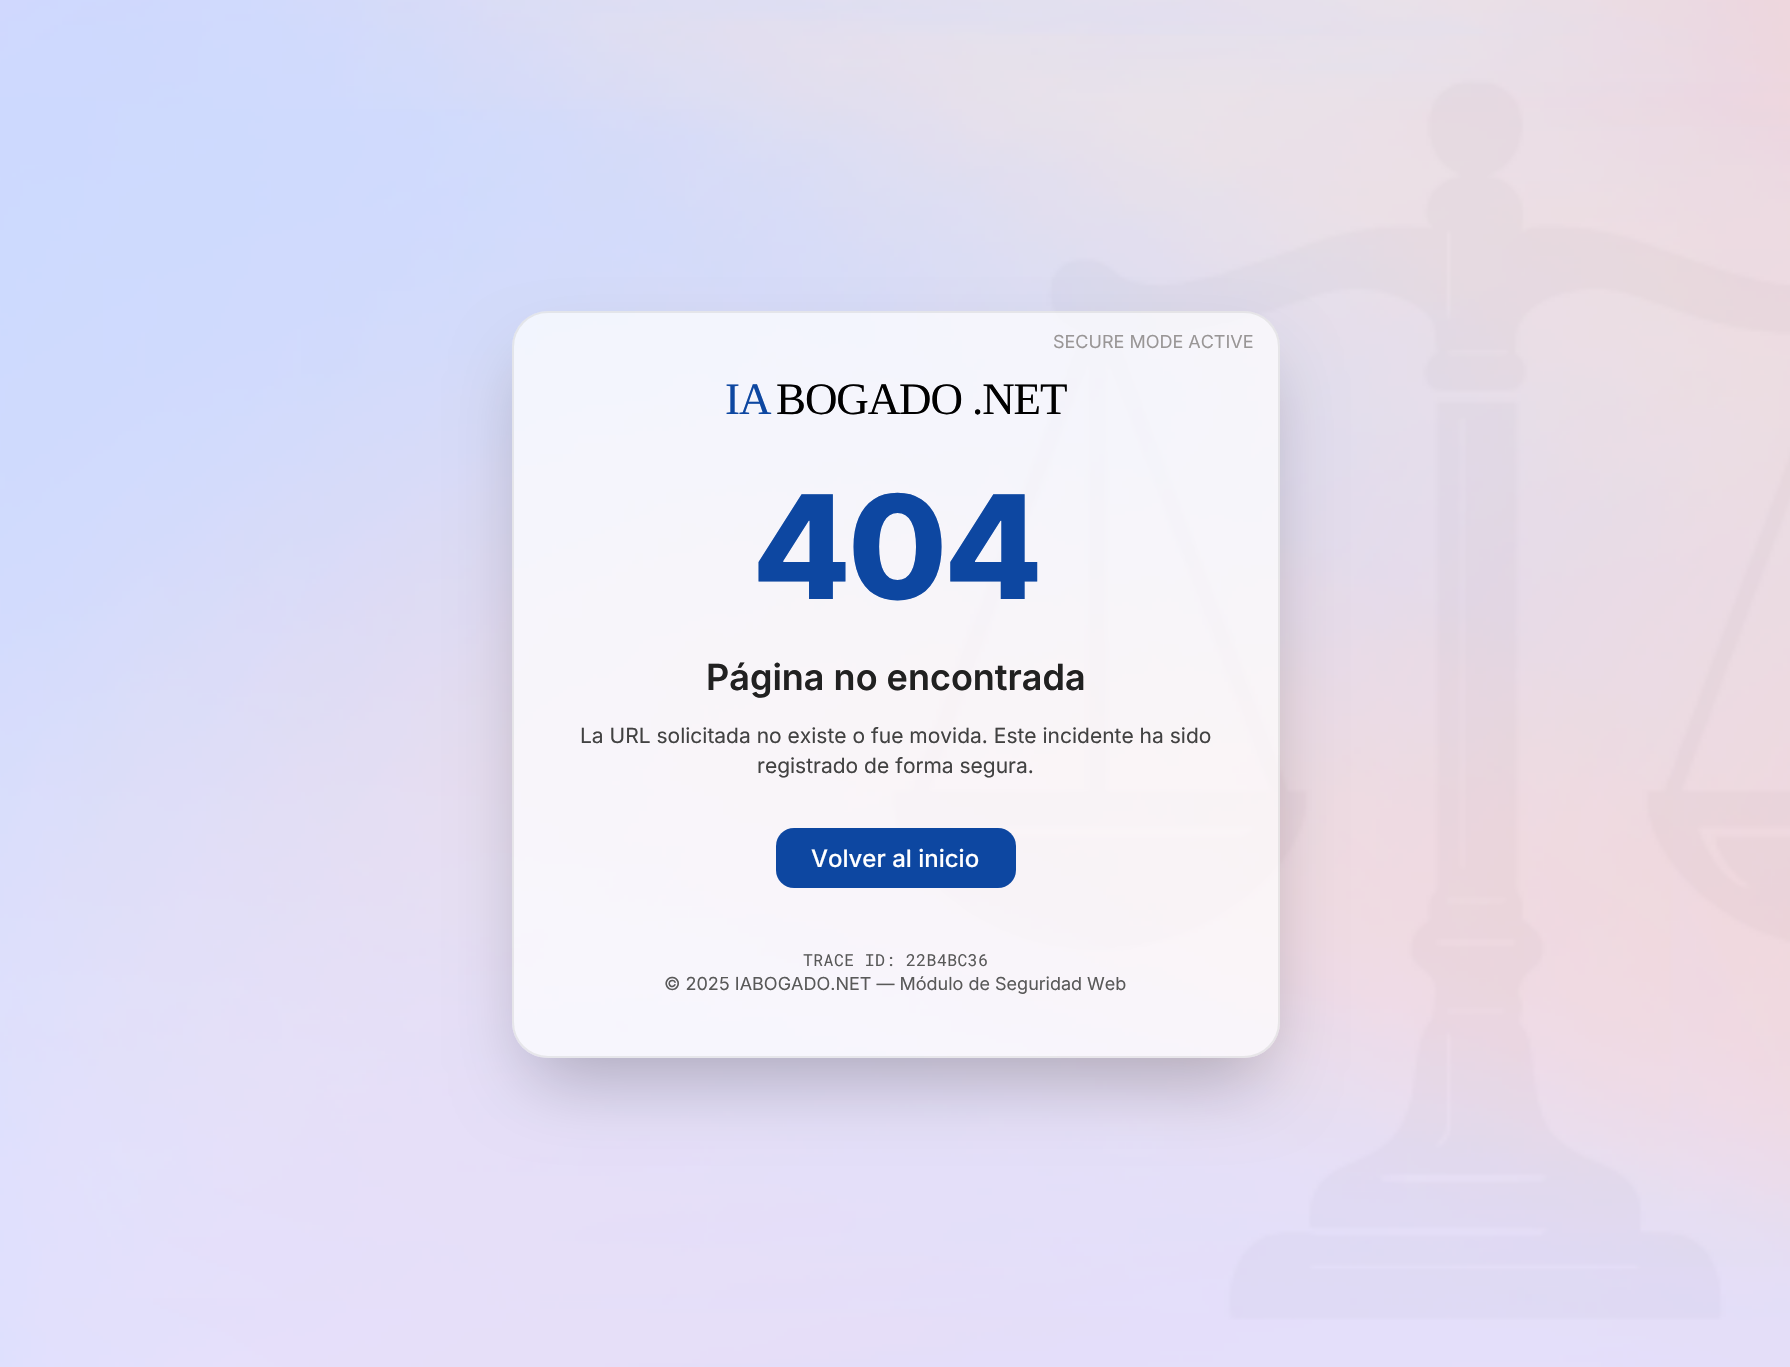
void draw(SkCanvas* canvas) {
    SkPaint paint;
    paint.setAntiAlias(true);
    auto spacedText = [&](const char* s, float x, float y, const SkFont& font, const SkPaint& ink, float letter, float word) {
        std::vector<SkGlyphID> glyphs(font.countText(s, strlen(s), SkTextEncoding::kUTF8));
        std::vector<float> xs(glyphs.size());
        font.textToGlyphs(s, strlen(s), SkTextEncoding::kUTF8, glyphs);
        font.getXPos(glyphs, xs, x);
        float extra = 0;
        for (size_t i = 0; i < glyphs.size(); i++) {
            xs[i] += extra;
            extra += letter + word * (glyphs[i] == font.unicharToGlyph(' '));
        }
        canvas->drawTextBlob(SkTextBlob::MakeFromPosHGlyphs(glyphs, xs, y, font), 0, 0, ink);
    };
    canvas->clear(0xFFFFFFFF);
    canvas->drawImageRect(SkImages::DeferredFromEncodedData(SkData::MakeFromFileName("img1.png")), SkRect::MakeXYWH(0, 0, 1790, 1367), SkSamplingOptions());
    canvas->save();
    canvas->clipPath(SkPathBuilder(SkPathFillType::kEvenOdd).moveTo(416, 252).lineTo(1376, 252).lineTo(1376, 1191).lineTo(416, 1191).close().moveTo(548, 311).lineTo(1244, 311).cubicTo(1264, 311, 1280, 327, 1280, 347).lineTo(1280, 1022).cubicTo(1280, 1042, 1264, 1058, 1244, 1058).lineTo(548, 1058).cubicTo(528, 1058, 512, 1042, 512, 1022).lineTo(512, 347).cubicTo(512, 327, 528, 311, 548, 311).close().detach(), true);
    paint.setColor(0x40000000);
    paint.setMaskFilter(SkMaskFilter::MakeBlur(kNormal_SkBlurStyle, 37.5f));
    canvas->drawRoundRect(SkRect::MakeXYWH(530, 366, 732, 711), 18, 18, paint);
    paint.setMaskFilter(nullptr);
    canvas->restore();
    paint.setColor(0xB3FFFFFF);
    canvas->drawRoundRect(SkRect::MakeXYWH(512, 311, 768, 747), 36, 36, paint);
    paint.setStyle(SkPaint::kStroke_Style);
    paint.setStrokeWidth(2);
    paint.setColor(0x66CDCDCD);
    canvas->drawRoundRect(SkRect::MakeXYWH(513, 312, 766, 745), 35, 35, paint);
    SkFont font1(fontMgr->matchFamilyStyle("Inter", SkFontStyle::Normal()), 18);
    font1.setSubpixel(true);
    paint.setStyle(SkPaint::kFill_Style);
    paint.setColor(0xFF999696);
    canvas->drawString("SECURE MODE ACTIVE", 1053, 348, font1, paint);
    SkFont font2(fontMgr->matchFamilyStyle("Liberation Serif", SkFontStyle::Normal()), 45);
    font2.setSubpixel(true);
    paint.setColor(0xFF0D47A1);
    spacedText("IA", 725, 414, font2, paint, -1.1f, 0);
    paint.setColor(0xFF000000);
    spacedText("BOGADO .NET", 776, 414, font2, paint, -1.1f, 0);
    SkFont font3(fontMgr->matchFamilyStyle("Inter", SkFontStyle(800, SkFontStyle::kNormal_Width, SkFontStyle::kUpright_Slant)), 144);
    font3.setSubpixel(true);
    paint.setColor(0xFF0D47A1);
    spacedText("404", 752, 599, font3, paint, -3.5f, 0);
    SkFont font4(fontMgr->matchFamilyStyle("Inter", SkFontStyle(600, SkFontStyle::kNormal_Width, SkFontStyle::kUpright_Slant)), 36);
    font4.setSubpixel(true);
    paint.setColor(0xFF212121);
    canvas->drawString("Página no encontrada", 706, 690, font4, paint);
    SkFont font5(fontMgr->matchFamilyStyle("Inter", SkFontStyle::Normal()), 21);
    font5.setSubpixel(true);
    paint.setColor(0xFF424242);
    canvas->drawString("La URL solicitada no existe o fue movida. Este incidente ha sido", 580, 743, font5, paint);
    canvas->drawString("registrado de forma segura.", 757, 773, font5, paint);
    paint.setColor(0xFF0D47A1);
    canvas->drawRoundRect(SkRect::MakeXYWH(776, 828, 240, 60), 18, 18, paint);
    SkFont font6(fontMgr->matchFamilyStyle("Inter", SkFontStyle(500, SkFontStyle::kNormal_Width, SkFontStyle::kUpright_Slant)), 24);
    font6.setSubpixel(true);
    paint.setColor(0xFFFFFFFF);
    canvas->drawString("Volver al inicio", 811, 867, font6, paint);
    SkFont font7(fontMgr->matchFamilyStyle("Roboto Mono", SkFontStyle::Normal()), 16.5f);
    font7.setSubpixel(true);
    paint.setColor(0xFF595959);
    spacedText("TRACE ID: 22B4BC36", 803, 966, font7, paint, 0.4f, 0);
    canvas->drawString("© 2025 IABOGADO.NET — Módulo de Seguridad Web", 664, 990, font1, paint);
}
